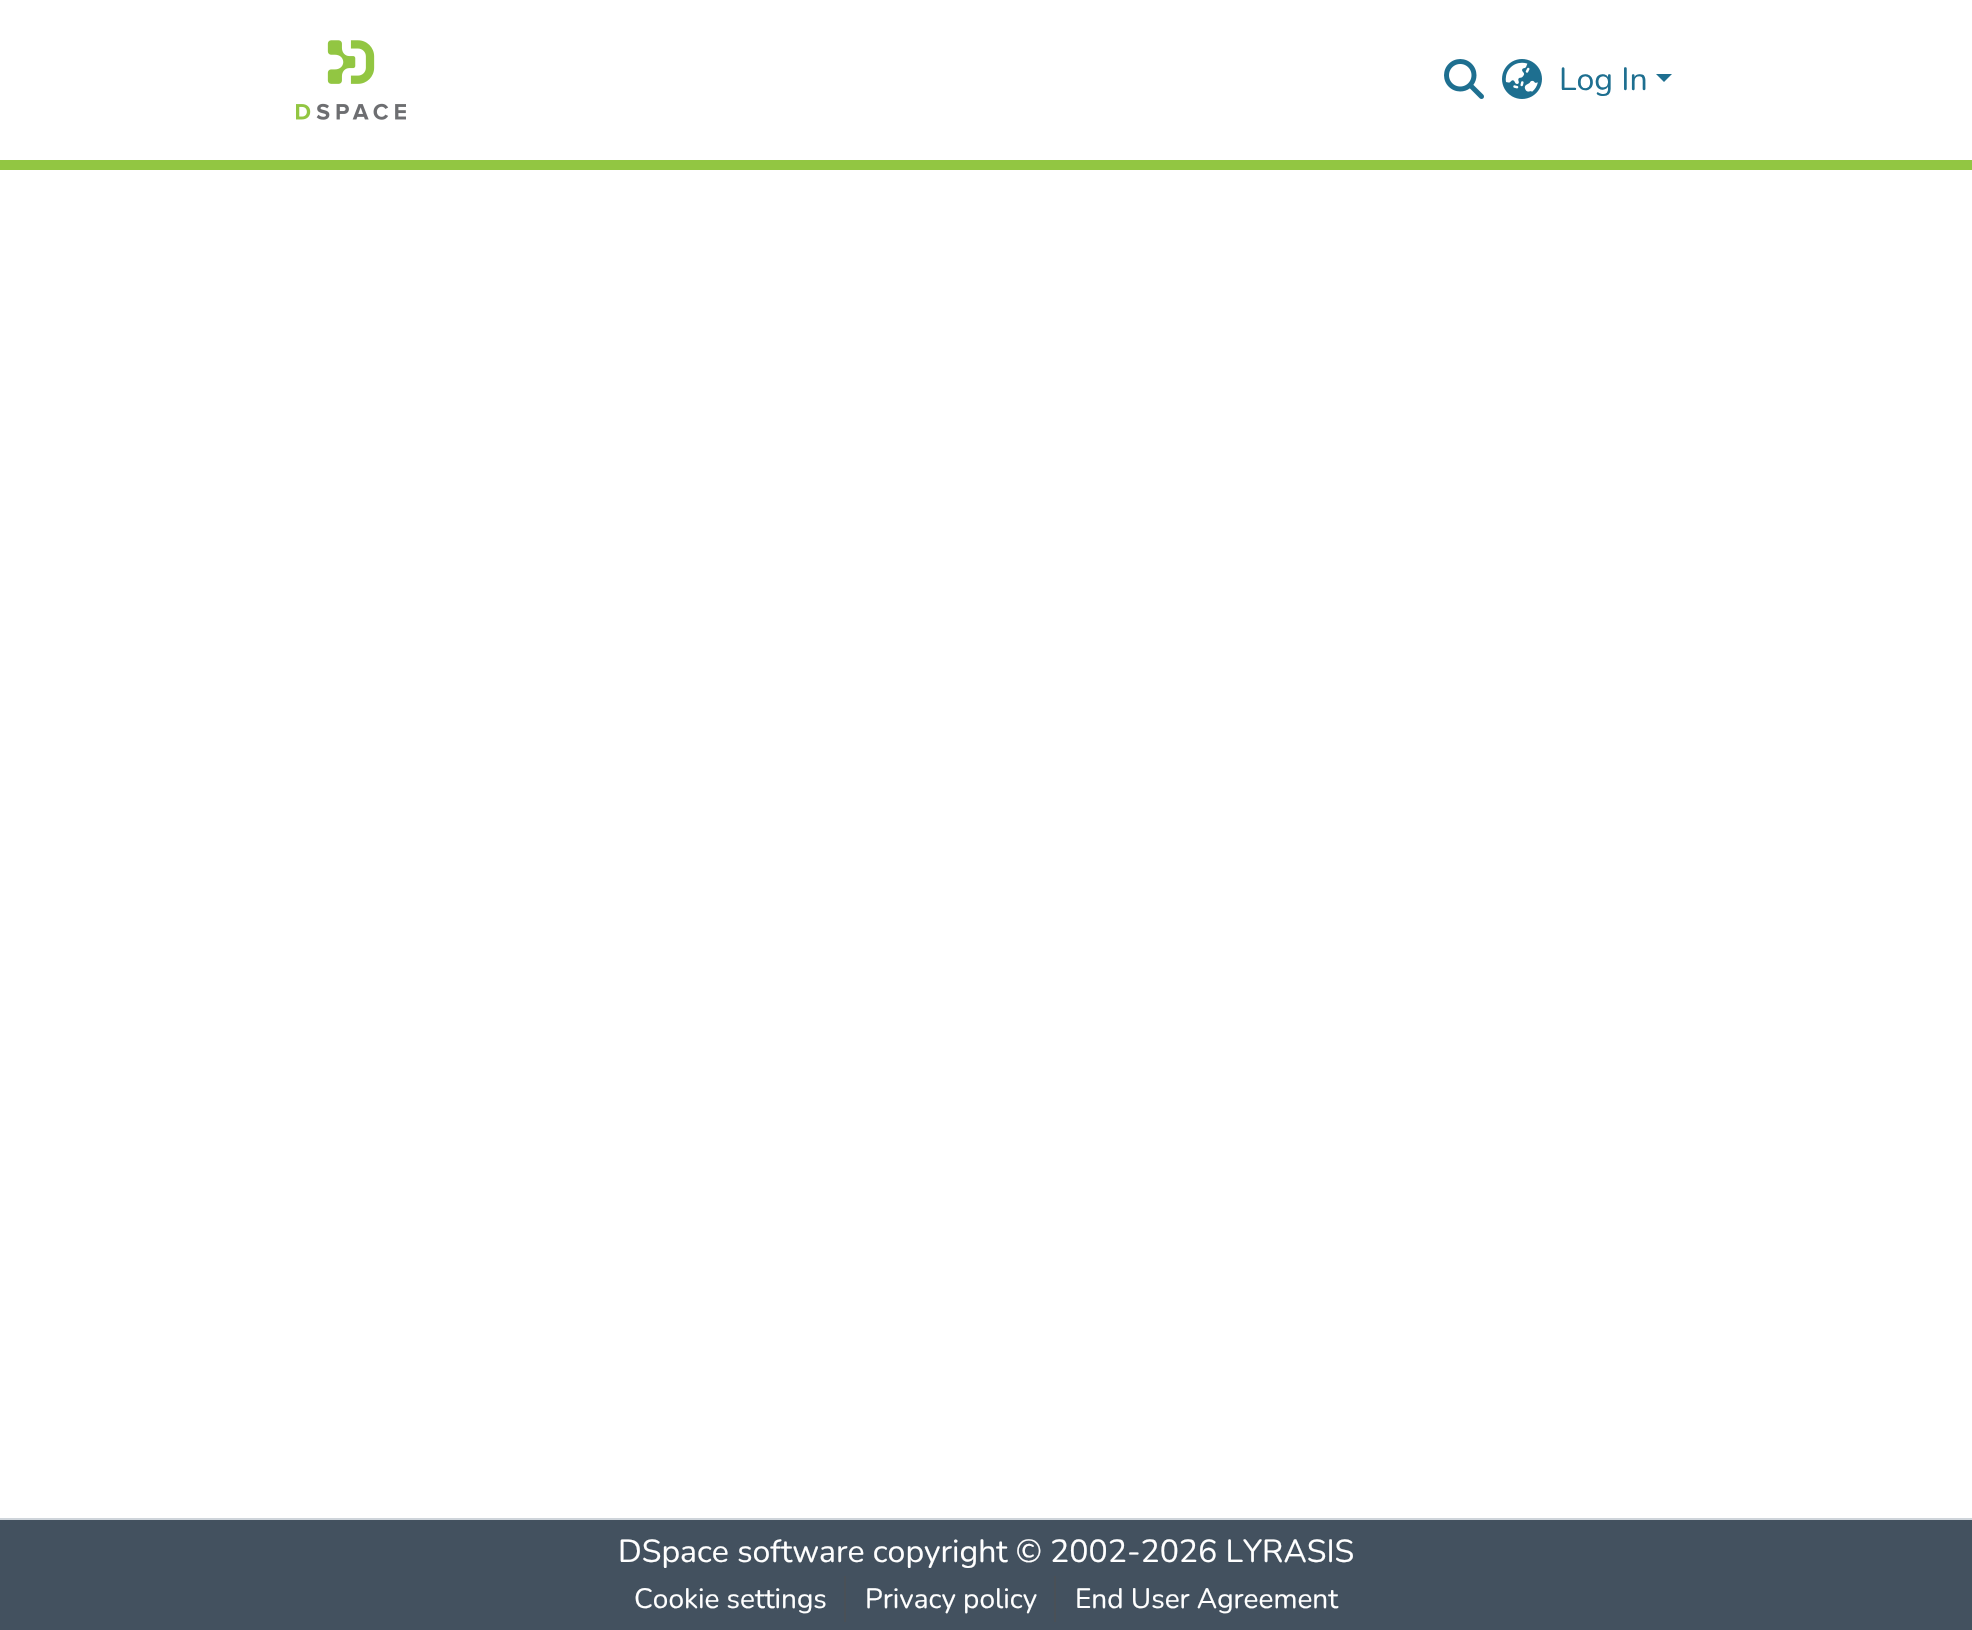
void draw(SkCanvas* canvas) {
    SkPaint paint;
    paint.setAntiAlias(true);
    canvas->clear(0xFFFFFFFF);
    paint.setColor(0xFF92C642);
    canvas->drawRect(SkRect::MakeXYWH(0, 160, 1972, 10), paint);
    canvas->drawImageRect(SkImages::DeferredFromEncodedData(SkData::MakeFromFileName("img1.png")), SkRect::MakeXYWH(296, 40, 110, 80), SkSamplingOptions());
    canvas->drawImageRect(SkImages::DeferredFromEncodedData(SkData::MakeFromFileName("img2.png")), SkRect::MakeXYWH(1444, 59, 40, 40), SkSamplingOptions());
    canvas->drawImageRect(SkImages::DeferredFromEncodedData(SkData::MakeFromFileName("img3.png")), SkRect::MakeXYWH(1502, 59, 40, 40), SkSamplingOptions());
    SkFont font1(fontMgr->matchFamilyStyle("Nunito", SkFontStyle::Normal()), 32);
    font1.setSubpixel(true);
    paint.setColor(0xFF1E6F90);
    canvas->drawString("Log In", 1559, 90, font1, paint);
    canvas->drawPath(SkPathBuilder().moveTo(1656, 74).lineTo(1672, 74).lineTo(1664, 82).close().detach(), paint);
    paint.setColor(0xFF43515F);
    canvas->drawRect(SkRect::MakeXYWH(0, 1520, 1972, 110), paint);
    paint.setColor(0xFFCED4DA);
    canvas->drawRect(SkRect::MakeXYWH(0, 1518, 1972, 2), paint);
    paint.setColor(0xFFFFFFFF);
    canvas->drawString("DSpace software copyright © 2002-2026 LYRASIS", 618, 1562, font1, paint);
    SkFont font2(fontMgr->matchFamilyStyle("Nunito", SkFontStyle::Normal()), 28);
    font2.setSubpixel(true);
    canvas->drawString("Cookie settings", 634, 1608, font2, paint);
    paint.setColor(0xFF495057);
    canvas->drawRect(SkRect::MakeXYWH(844, 1576, 2, 46), paint);
    paint.setColor(0xFFFFFFFF);
    canvas->drawString("Privacy policy", 865, 1608, font2, paint);
    paint.setColor(0xFF495057);
    canvas->drawRect(SkRect::MakeXYWH(1054, 1576, 2, 46), paint);
    paint.setColor(0xFFFFFFFF);
    canvas->drawString("End User Agreement", 1075, 1608, font2, paint);
}
